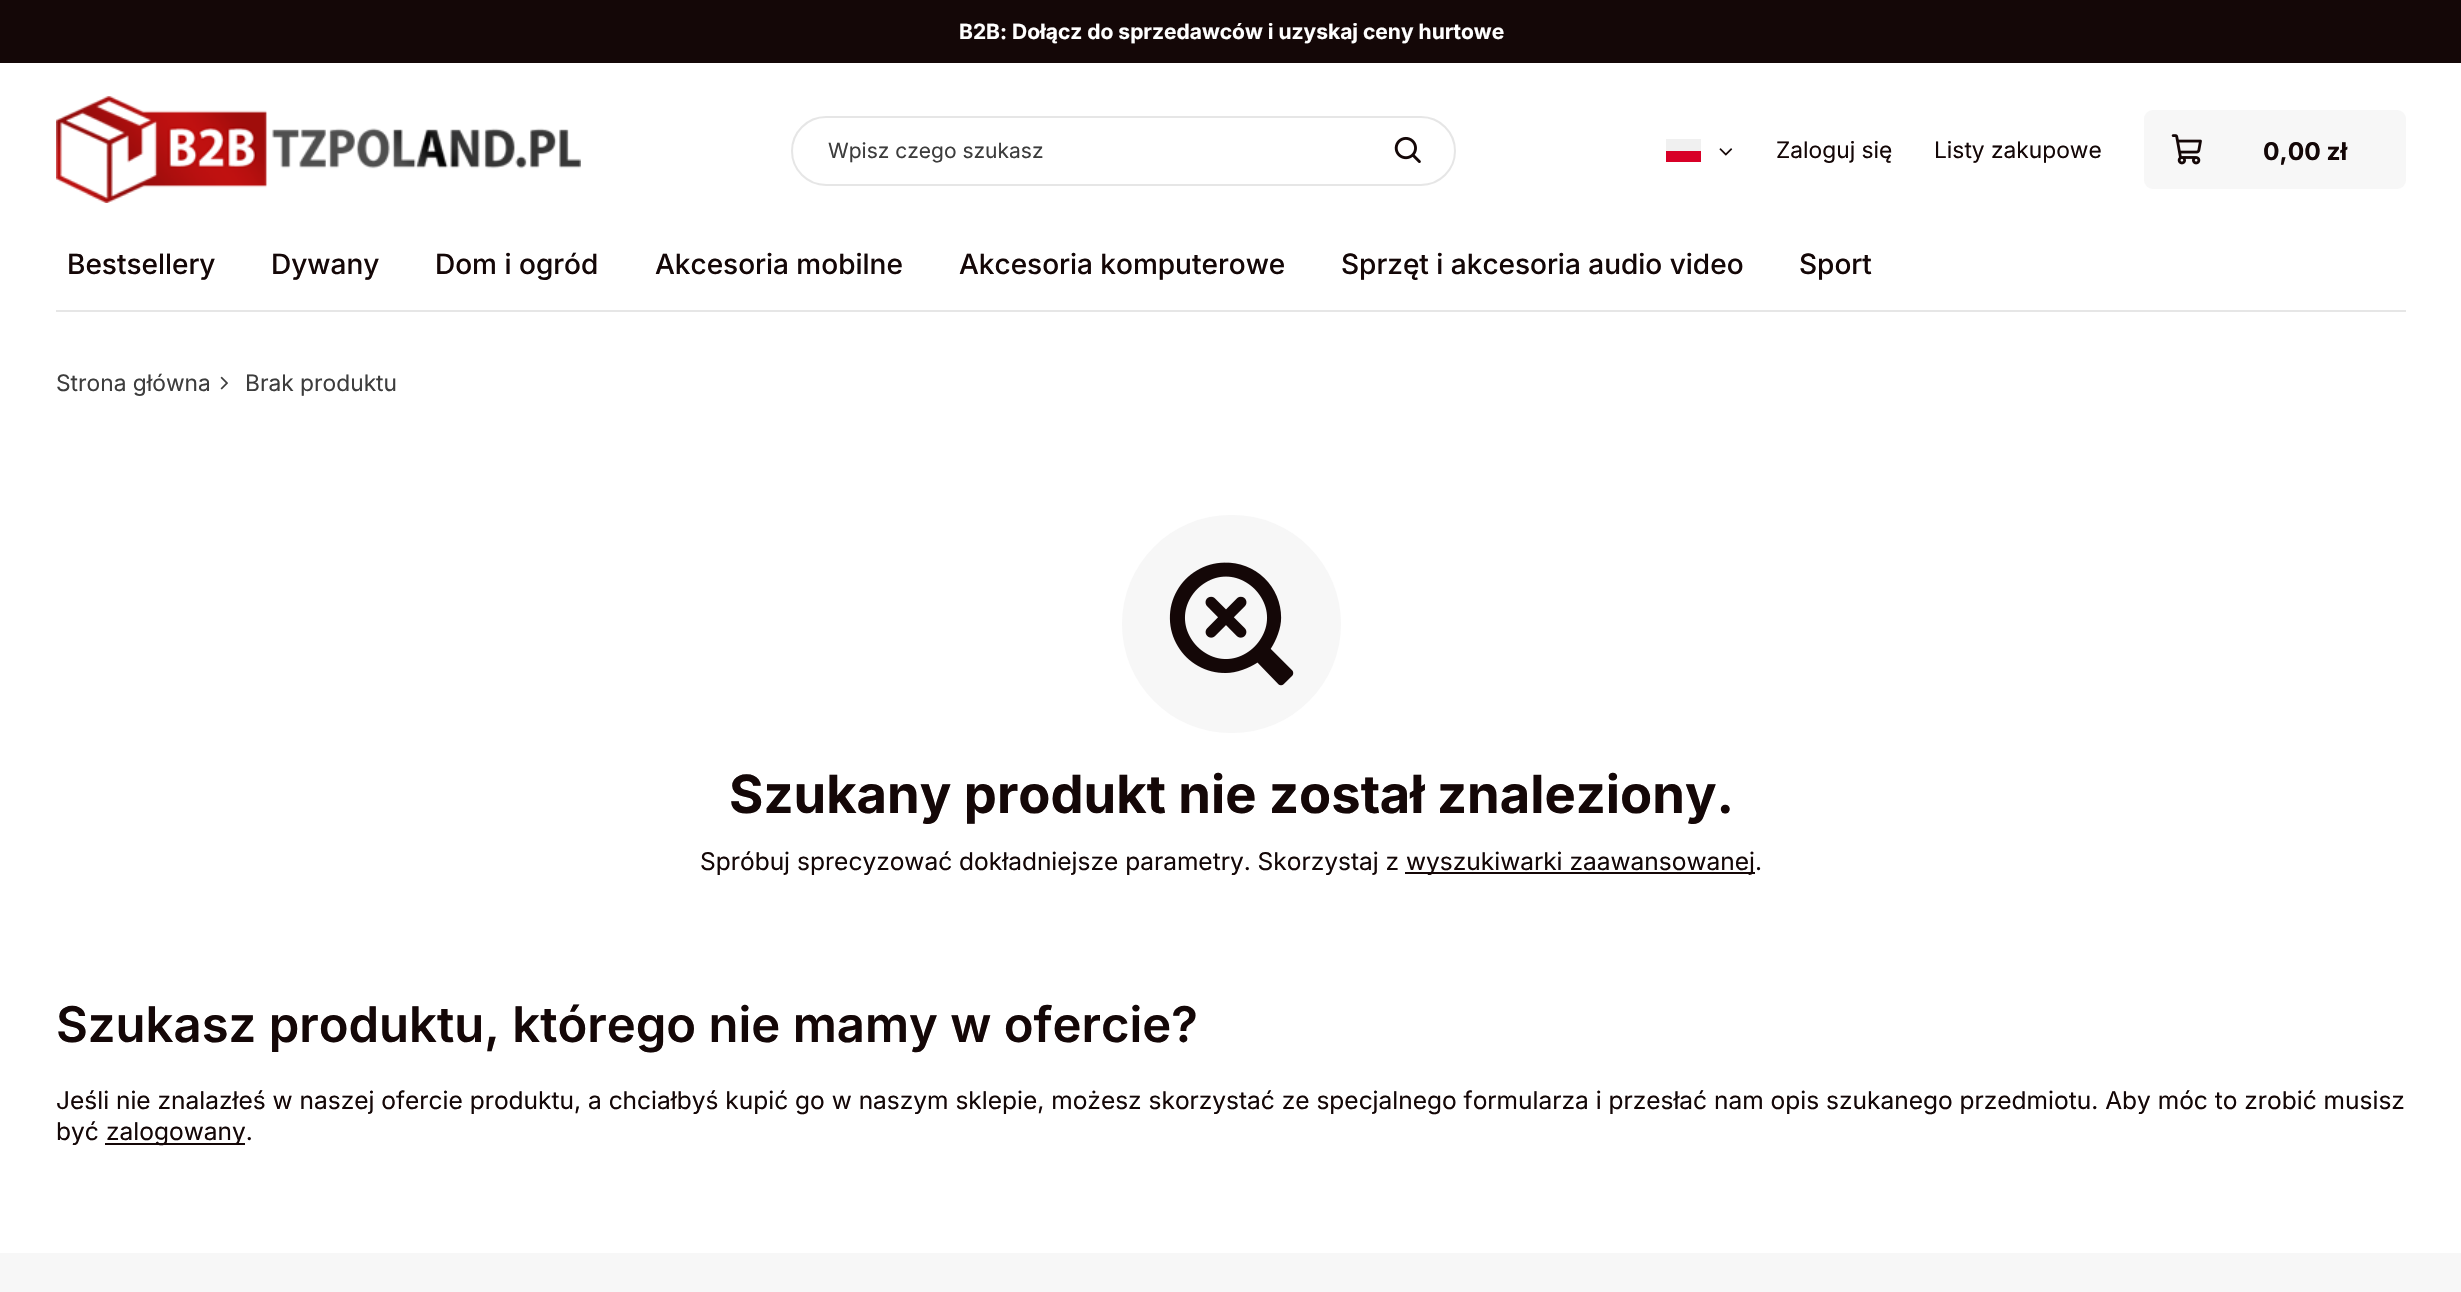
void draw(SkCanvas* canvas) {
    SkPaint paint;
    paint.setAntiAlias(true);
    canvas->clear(0xFFFFFFFF);
    paint.setColor(0xFF140707);
    canvas->drawRect(SkRect::MakeXYWH(0, 0, 2461, 63), paint);
    SkFont font1(fontMgr->matchFamilyStyle("Inter", SkFontStyle::Bold()), 21);
    font1.setSubpixel(true);
    paint.setColor(0xFFFFFFFF);
    canvas->drawString("B2B: Dołącz do sprzedawców i uzyskaj ceny hurtowe", 959, 39, font1, paint);
    canvas->drawImageRect(SkImages::DeferredFromEncodedData(SkData::MakeFromFileName("img1.png")), SkRect::MakeXYWH(56, 96, 525, 107), SkSamplingOptions());
    paint.setStyle(SkPaint::kStroke_Style);
    paint.setStrokeWidth(2);
    paint.setColor(0xFFE6E6E6);
    canvas->drawRoundRect(SkRect::MakeXYWH(792, 117, 663, 68), 34, 34, paint);
    SkFont font2(fontMgr->matchFamilyStyle("Inter", SkFontStyle::Normal()), 21);
    font2.setSubpixel(true);
    paint.setStyle(SkPaint::kFill_Style);
    paint.setColor(0xFF3D3D3D);
    canvas->drawString("Wpisz czego szukasz", 828, 158, font2, paint);
    canvas->drawImageRect(SkImages::DeferredFromEncodedData(SkData::MakeFromFileName("img2.png")), SkRect::MakeXYWH(1394, 136, 27, 27), SkSamplingOptions());
    paint.setColor(0xFFF0F0F0);
    canvas->drawRect(SkRect::MakeXYWH(1666, 139, 35, 12), paint);
    paint.setColor(0xFFD80027);
    canvas->drawRect(SkRect::MakeXYWH(1666, 151, 35, 11), paint);
    canvas->drawImageRect(SkImages::DeferredFromEncodedData(SkData::MakeFromFileName("img3.png")), SkRect::MakeXYWH(1719, 148, 14, 8), SkSamplingOptions());
    SkFont font3(fontMgr->matchFamilyStyle("Inter", SkFontStyle::Normal()), 22.75f);
    font3.setSubpixel(true);
    paint.setColor(0xFF140707);
    canvas->drawString("Zaloguj się", 1776, 158, font3, paint);
    canvas->drawString("Listy zakupowe", 1934, 158, font3, paint);
    paint.setColor(0xFFF7F7F7);
    canvas->drawRoundRect(SkRect::MakeXYWH(2144, 110, 262, 79), 9, 9, paint);
    canvas->drawImageRect(SkImages::DeferredFromEncodedData(SkData::MakeFromFileName("img4.png")), SkRect::MakeXYWH(2171, 134, 31, 31), SkSamplingOptions());
    SkFont font4(fontMgr->matchFamilyStyle("Inter", SkFontStyle::Bold()), 24.5f);
    font4.setSubpixel(true);
    paint.setColor(0xFF140707);
    canvas->drawString("0,00 zł", 2263, 160, font4, paint);
    paint.setColor(0xFFE6E6E6);
    canvas->drawRect(SkRect::MakeXYWH(56, 310, 2350, 2), paint);
    SkFont font5(fontMgr->matchFamilyStyle("Inter", SkFontStyle(500, SkFontStyle::kNormal_Width, SkFontStyle::kUpright_Slant)), 28);
    font5.setSubpixel(true);
    paint.setColor(0xFF140707);
    canvas->drawString("Bestsellery", 67, 274, font5, paint);
    canvas->drawString("Dywany", 271, 274, font5, paint);
    canvas->drawString("Dom i ogród", 435, 274, font5, paint);
    canvas->drawString("Akcesoria mobilne", 655, 274, font5, paint);
    canvas->drawString("Akcesoria komputerowe", 959, 274, font5, paint);
    canvas->drawString("Sprzęt i akcesoria audio video", 1341, 274, font5, paint);
    canvas->drawString("Sport", 1799, 274, font5, paint);
    paint.setColor(0xFF3D3D3D);
    canvas->drawString("Strona główna", 56, 391, font3, paint);
    canvas->drawImageRect(SkImages::DeferredFromEncodedData(SkData::MakeFromFileName("img5.png")), SkRect::MakeXYWH(220, 376, 8, 14), SkSamplingOptions());
    canvas->drawString("Brak produktu", 245, 391, font3, paint);
    paint.setColor(0xFFF7F7F7);
    canvas->drawRoundRect(SkRect::MakeXYWH(1122, 515, 219, 218), 109, 109, paint);
    canvas->drawImageRect(SkImages::DeferredFromEncodedData(SkData::MakeFromFileName("img6.png")), SkRect::MakeXYWH(1169, 562, 125, 124), SkSamplingOptions());
    SkFont font6(fontMgr->matchFamilyStyle("Inter", SkFontStyle::Bold()), 52.5f);
    font6.setSubpixel(true);
    paint.setColor(0xFF140707);
    canvas->drawString("Szukany produkt nie został znaleziony.", 729, 813, font6, paint);
    SkFont font7(fontMgr->matchFamilyStyle("Inter", SkFontStyle::Normal()), 24.5f);
    font7.setSubpixel(true);
    canvas->drawString("Spróbuj sprecyzować dokładniejsze parametry. Skorzystaj z", 700, 870, font7, paint);
    canvas->drawRect(SkRect::MakeXYWH(1405, 872, 350, 2), paint);
    canvas->drawString("wyszukiwarki zaawansowanej.", 1406, 870, font7, paint);
    SkFont font8(fontMgr->matchFamilyStyle("Inter", SkFontStyle(600, SkFontStyle::kNormal_Width, SkFontStyle::kUpright_Slant)), 49);
    font8.setSubpixel(true);
    canvas->drawString("Szukasz produktu, którego nie mamy w ofercie?", 56, 1042, font8, paint);
    canvas->drawString("Jeśli nie znalazłeś w naszej ofercie produktu, a chciałbyś kupić go w naszym sklepie, możesz skorzystać ze specjalnego formularza i przesłać nam opis szukanego przedmiotu. Aby móc to zrobić musisz", 56, 1109, font7, paint);
    canvas->drawString("być", 56, 1140, font7, paint);
    canvas->drawRect(SkRect::MakeXYWH(105, 1143, 140, 2), paint);
    canvas->drawString("zalogowany.", 106, 1140, font7, paint);
    paint.setColor(0xFFF7F7F7);
    canvas->drawRect(SkRect::MakeXYWH(0, 1253, 2461, 39), paint);
}
